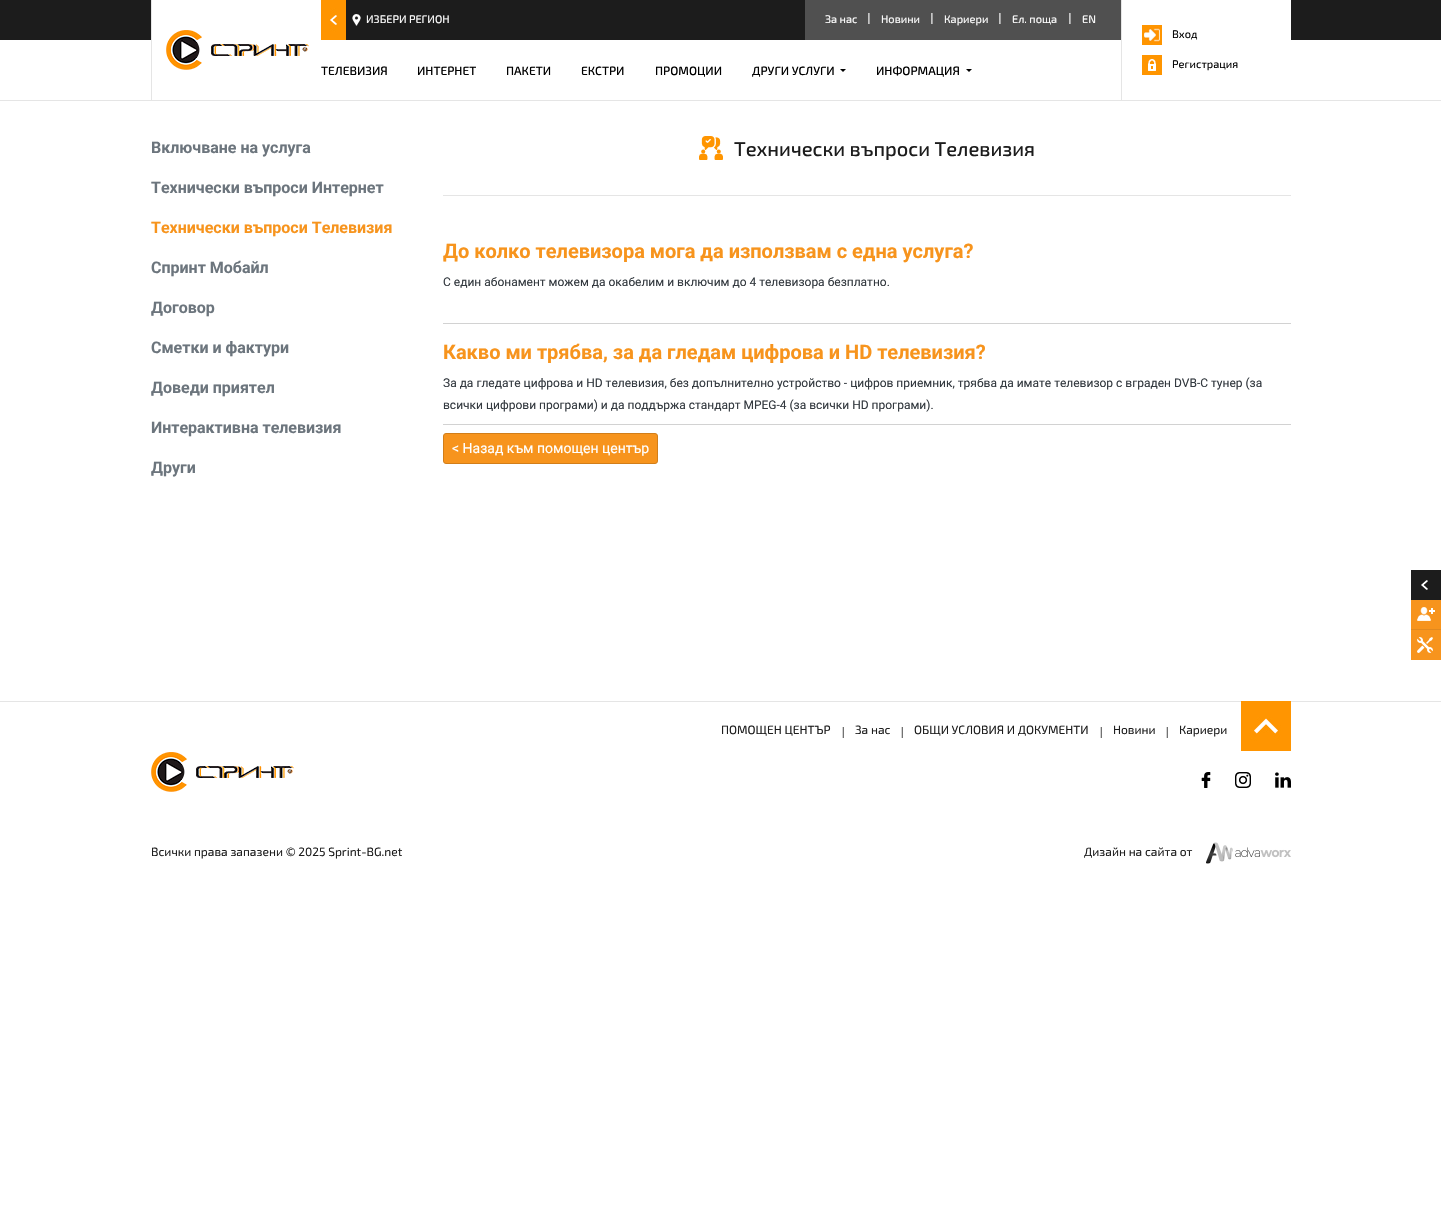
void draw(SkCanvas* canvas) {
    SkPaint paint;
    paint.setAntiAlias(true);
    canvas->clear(0xFFFFFFFF);
    paint.setColor(0xFF1C1C1C);
    canvas->drawRect(SkRect::MakeXYWH(0, 0, 1441, 40), paint);
    SkFont font1(fontMgr->matchFamilyStyle("Exo 2", SkFontStyle(500, SkFontStyle::kNormal_Width, SkFontStyle::kUpright_Slant)), 12);
    font1.setSubpixel(true);
    paint.setColor(0xFF000000);
    canvas->drawString("ТЕЛЕВИЗИЯ", 321, 75, font1, paint);
    paint.setColor(0xFFFFFFFF);
    canvas->drawRect(SkRect::MakeXYWH(152, 0, 169, 68), paint);
    paint.setColor(0xFFE5E5E5);
    canvas->drawRect(SkRect::MakeXYWH(151, 0, 1, 100), paint);
    canvas->drawImageRect(SkImages::DeferredFromEncodedData(SkData::MakeFromFileName("img1.png")), SkRect::MakeXYWH(166, 30, 143, 40), SkSamplingOptions());
    canvas->drawImageRect(SkImages::DeferredFromEncodedData(SkData::MakeFromFileName("img2.png")), SkRect::MakeXYWH(321, 0, 25, 40), SkSamplingOptions());
    canvas->drawImageRect(SkImages::DeferredFromEncodedData(SkData::MakeFromFileName("img3.png")), SkRect::MakeXYWH(352, 14, 9, 12), SkSamplingOptions());
    SkFont font2(fontMgr->matchFamilyStyle("Exo 2", SkFontStyle::Normal()), 11);
    font2.setSubpixel(true);
    paint.setColor(0xFFFFFFFF);
    canvas->drawString("ИЗБЕРИ РЕГИОН", 366, 23, font2, paint);
    paint.setColor(0xFF505050);
    canvas->drawRect(SkRect::MakeXYWH(805, 0, 316, 40), paint);
    canvas->drawImageRect(SkImages::DeferredFromEncodedData(SkData::MakeFromFileName("img4.png")), SkRect::MakeXYWH(868, 13, 2, 11), SkSamplingOptions());
    paint.setColor(0xFFFFFFFF);
    canvas->drawString("За нас", 825, 23, font2, paint);
    canvas->drawImageRect(SkImages::DeferredFromEncodedData(SkData::MakeFromFileName("img4.png")), SkRect::MakeXYWH(931, 13, 2, 11), SkSamplingOptions());
    canvas->drawString("Новини", 881, 23, font2, paint);
    canvas->drawImageRect(SkImages::DeferredFromEncodedData(SkData::MakeFromFileName("img4.png")), SkRect::MakeXYWH(999, 13, 2, 11), SkSamplingOptions());
    canvas->drawString("Кариери", 944, 23, font2, paint);
    canvas->drawImageRect(SkImages::DeferredFromEncodedData(SkData::MakeFromFileName("img4.png")), SkRect::MakeXYWH(1069, 13, 2, 11), SkSamplingOptions());
    canvas->drawString("Ел. поща", 1012, 23, font2, paint);
    canvas->drawString("EN", 1082, 23, font2, paint);
    canvas->drawRect(SkRect::MakeXYWH(1122, 0, 169, 40), paint);
    paint.setColor(0xFFE5E5E5);
    canvas->drawRect(SkRect::MakeXYWH(1121, 0, 1, 100), paint);
    canvas->drawImageRect(SkImages::DeferredFromEncodedData(SkData::MakeFromFileName("img5.png")), SkRect::MakeXYWH(1142, 25, 20, 20), SkSamplingOptions());
    paint.setColor(0xFF000000);
    canvas->drawString("Вход", 1172, 38, font2, paint);
    canvas->drawImageRect(SkImages::DeferredFromEncodedData(SkData::MakeFromFileName("img6.png")), SkRect::MakeXYWH(1142, 55, 20, 20), SkSamplingOptions());
    canvas->drawString("Регистрация", 1172, 68, font2, paint);
    paint.setColor(0xFFE5E5E5);
    canvas->drawRect(SkRect::MakeXYWH(0, 100, 1441, 1), paint);
    paint.setColor(0xFF000000);
    canvas->drawString("ИНТЕРНЕТ", 417, 75, font1, paint);
    canvas->drawString("ПАКЕТИ", 506, 75, font1, paint);
    canvas->drawString("ЕКСТРИ", 581, 75, font1, paint);
    canvas->drawString("ПРОМОЦИИ", 655, 75, font1, paint);
    canvas->drawString("ДРУГИ УСЛУГИ", 752, 75, font1, paint);
    canvas->drawPath(SkPathBuilder().moveTo(840, 69).lineTo(846, 69).lineTo(843, 72).close().detach(), paint);
    canvas->drawString("ИНФОРМАЦИЯ", 876, 75, font1, paint);
    canvas->drawPath(SkPathBuilder().moveTo(966, 69).lineTo(972, 69).lineTo(969, 72).close().detach(), paint);
    SkFont font3(fontMgr->matchFamilyStyle("Roboto", SkFontStyle::Bold()), 16);
    font3.setSubpixel(true);
    paint.setColor(0xFF6C757D);
    canvas->drawString("Включване на услуга", 151, 153, font3, paint);
    canvas->drawString("Технически въпроси Интернет", 151, 193, font3, paint);
    paint.setColor(0xFFF7941D);
    canvas->drawString("Технически въпроси Телевизия", 151, 233, font3, paint);
    paint.setColor(0xFF6C757D);
    canvas->drawString("Спринт Мобайл", 151, 273, font3, paint);
    canvas->drawString("Договор", 151, 313, font3, paint);
    canvas->drawString("Сметки и фактури", 151, 353, font3, paint);
    canvas->drawString("Доведи приятел", 151, 393, font3, paint);
    canvas->drawString("Интерактивна телевизия", 151, 433, font3, paint);
    canvas->drawString("Други", 151, 473, font3, paint);
    paint.setColor(0xFFE5E5E5);
    canvas->drawRect(SkRect::MakeXYWH(443, 195, 848, 1), paint);
    canvas->drawImageRect(SkImages::DeferredFromEncodedData(SkData::MakeFromFileName("img7.png")), SkRect::MakeXYWH(699, 136, 24, 24), SkSamplingOptions());
    SkFont font4(fontMgr->matchFamilyStyle("Exo 2", SkFontStyle(500, SkFontStyle::kNormal_Width, SkFontStyle::kUpright_Slant)), 20);
    font4.setSubpixel(true);
    paint.setColor(0xFF1C1C1C);
    canvas->drawString("Технически въпроси Телевизия", 734, 156, font4, paint);
    paint.setColor(0xFFD2D2D2);
    canvas->drawRect(SkRect::MakeXYWH(443, 323, 848, 1), paint);
    SkFont font5(fontMgr->matchFamilyStyle("Roboto", SkFontStyle::Bold()), 20);
    font5.setSubpixel(true);
    paint.setColor(0xFFF7941D);
    canvas->drawString("До колко телевизора мога да използвам с една услуга?", 443, 258, font5, paint);
    SkFont font6(fontMgr->matchFamilyStyle("Roboto", SkFontStyle::Normal()), 12);
    font6.setSubpixel(true);
    paint.setColor(0xFF343A40);
    canvas->drawString("С един абонамент можем да окабелим и включим до 4 телевизора безплатно.", 443, 286, font6, paint);
    paint.setColor(0xFFD2D2D2);
    canvas->drawRect(SkRect::MakeXYWH(443, 424, 848, 1), paint);
    paint.setColor(0xFFF7941D);
    canvas->drawString("Какво ми трябва, за да гледам цифрова и HD телевизия?", 443, 359, font5, paint);
    paint.setColor(0xFF343A40);
    canvas->drawString("За да гледате цифрова и HD телевизия, без допълнително устройство - цифров приемник, трябва да имате телевизор с вграден DVB-C тунер (за", 443, 387, font6, paint);
    canvas->drawString("всички цифрови програми) и да поддържа стандарт MPEG-4 (за всички HD програми).", 443, 409, font6, paint);
    paint.setColor(0xFFF7941D);
    canvas->drawRoundRect(SkRect::MakeXYWH(443.5f, 433.5f, 214, 30), 2.5f, 2.5f, paint);
    paint.setStyle(SkPaint::kStroke_Style);
    paint.setStrokeWidth(1);
    paint.setColor(0xFFD27E19);
    canvas->drawRoundRect(SkRect::MakeXYWH(443.5f, 433.5f, 214, 30), 2.5f, 2.5f, paint);
    SkFont font7(fontMgr->matchFamilyStyle("Roboto", SkFontStyle::Normal()), 14);
    font7.setSubpixel(true);
    paint.setStyle(SkPaint::kFill_Style);
    paint.setColor(0xFFFFFFFF);
    canvas->drawString("< Назад към помощен център", 452, 453, font7, paint);
    paint.setColor(0xFF1C1C1C);
    canvas->drawRect(SkRect::MakeXYWH(1411, 570, 30, 30), paint);
    canvas->drawImageRect(SkImages::DeferredFromEncodedData(SkData::MakeFromFileName("img8.png")), SkRect::MakeXYWH(1421, 580, 7, 10), SkSamplingOptions());
    paint.setColor(0xFFF7941D);
    canvas->drawRect(SkRect::MakeXYWH(1411, 600, 30, 60), paint);
    canvas->drawImageRect(SkImages::DeferredFromEncodedData(SkData::MakeFromFileName("img9.png")), SkRect::MakeXYWH(1417, 607, 18, 14), SkSamplingOptions());
    paint.setColor(0xFFE1891F);
    canvas->drawRect(SkRect::MakeXYWH(1411, 629, 30, 1), paint);
    canvas->drawImageRect(SkImages::DeferredFromEncodedData(SkData::MakeFromFileName("img10.png")), SkRect::MakeXYWH(1417, 637, 16, 16), SkSamplingOptions());
    paint.setColor(0xFFE5E5E5);
    canvas->drawRect(SkRect::MakeXYWH(0, 701, 1441, 1), paint);
    canvas->drawImageRect(SkImages::DeferredFromEncodedData(SkData::MakeFromFileName("img11.png")), SkRect::MakeXYWH(842, 727, 2, 11), SkSamplingOptions());
    SkFont font8(fontMgr->matchFamilyStyle("Exo 2", SkFontStyle::Normal()), 12);
    font8.setSubpixel(true);
    paint.setColor(0xFF1C1C1C);
    canvas->drawString("ПОМОЩЕН ЦЕНТЪР", 721, 734, font8, paint);
    canvas->drawImageRect(SkImages::DeferredFromEncodedData(SkData::MakeFromFileName("img11.png")), SkRect::MakeXYWH(901, 727, 2, 11), SkSamplingOptions());
    canvas->drawString("За нас", 855, 734, font8, paint);
    canvas->drawImageRect(SkImages::DeferredFromEncodedData(SkData::MakeFromFileName("img11.png")), SkRect::MakeXYWH(1100, 727, 2, 11), SkSamplingOptions());
    canvas->drawString("ОБЩИ УСЛОВИЯ И ДОКУМЕНТИ", 914, 734, font8, paint);
    canvas->drawImageRect(SkImages::DeferredFromEncodedData(SkData::MakeFromFileName("img11.png")), SkRect::MakeXYWH(1166, 727, 2, 11), SkSamplingOptions());
    canvas->drawString("Новини", 1113, 734, font8, paint);
    canvas->drawString("Кариери", 1179, 734, font8, paint);
    canvas->drawImageRect(SkImages::DeferredFromEncodedData(SkData::MakeFromFileName("img12.png")), SkRect::MakeXYWH(1241, 701, 50, 50), SkSamplingOptions());
    canvas->drawImageRect(SkImages::DeferredFromEncodedData(SkData::MakeFromFileName("img1.png")), SkRect::MakeXYWH(151, 752, 143, 40), SkSamplingOptions());
    canvas->drawImageRect(SkImages::DeferredFromEncodedData(SkData::MakeFromFileName("img13.png")), SkRect::MakeXYWH(1201, 772, 10, 16), SkSamplingOptions());
    canvas->drawImageRect(SkImages::DeferredFromEncodedData(SkData::MakeFromFileName("img14.png")), SkRect::MakeXYWH(1235, 772, 16, 16), SkSamplingOptions());
    canvas->drawImageRect(SkImages::DeferredFromEncodedData(SkData::MakeFromFileName("img15.png")), SkRect::MakeXYWH(1275, 772, 16, 16), SkSamplingOptions());
    canvas->drawString("Всички права запазени © 2025 Sprint-BG.net", 151, 856, font8, paint);
    canvas->drawString("Дизайн на сайта от", 1084, 856, font8, paint);
    canvas->drawImageRect(SkImages::DeferredFromEncodedData(SkData::MakeFromFileName("img16.png")), SkRect::MakeXYWH(1206, 842, 85, 22), SkSamplingOptions());
}
